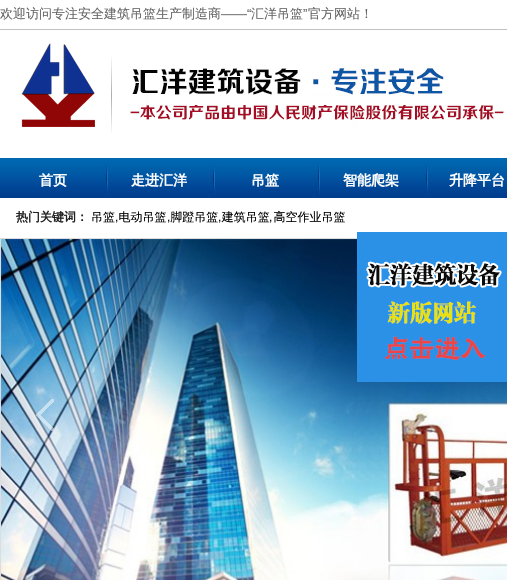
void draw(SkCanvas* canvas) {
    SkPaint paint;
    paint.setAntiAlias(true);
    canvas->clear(0xFFFFFFFF);
    paint.setColor(0xFFC1C1C1);
    canvas->drawRect(SkRect::MakeXYWH(0, 29, 507, 1), paint);
    SkFont font1(fontMgr->matchFamilyStyle("WenQuanYi Zen Hei", SkFontStyle(500, SkFontStyle::kNormal_Width, SkFontStyle::kUpright_Slant)), 13);
    font1.setSubpixel(true);
    paint.setColor(0xFF666666);
    canvas->drawString("欢迎访问专注安全建筑吊篮生产制造商", 0, 18, font1, paint);
    SkFont font2(fontMgr->matchFamilyStyle("Liberation Sans", SkFontStyle::Normal()), 13);
    font2.setSubpixel(true);
    canvas->drawString("——“", 221, 18, font2, paint);
    canvas->drawString("汇洋吊篮", 251, 18, font1, paint);
    canvas->drawString("”", 303, 18, font2, paint);
    canvas->drawString("官方网站！", 308, 18, font1, paint);
    canvas->drawImageRect(SkImages::DeferredFromEncodedData(SkData::MakeFromFileName("img1.png")), SkRect::MakeXYWH(21, 43, 74, 84), SkSamplingOptions());
    canvas->drawImageRect(SkImages::DeferredFromEncodedData(SkData::MakeFromFileName("img2.png")), SkRect::MakeXYWH(111, 57, 393, 77), SkSamplingOptions());
    canvas->drawImageRect(SkImages::DeferredFromEncodedData(SkData::MakeFromFileName("img3.png")), SkRect::MakeXYWH(0, 158, 507, 40), SkSamplingOptions());
    SkFont font3(fontMgr->matchFamilyStyle("WenQuanYi Zen Hei", SkFontStyle::Bold()), 14);
    font3.setSubpixel(true);
    paint.setColor(0xFFFFFFFF);
    canvas->drawString("首页", 39, 185, font3, paint);
    canvas->drawString("走进汇洋", 131, 185, font3, paint);
    canvas->drawString("吊篮", 251, 185, font3, paint);
    canvas->drawString("智能爬架", 343, 185, font3, paint);
    canvas->drawString("升降平台", 449, 185, font3, paint);
    SkFont font4(fontMgr->matchFamilyStyle("WenQuanYi Zen Hei", SkFontStyle::Bold()), 12);
    font4.setSubpixel(true);
    paint.setColor(0xFF222222);
    canvas->drawString("热门关键词：", 16, 221, font4, paint);
    SkFont font5(fontMgr->matchFamilyStyle("WenQuanYi Zen Hei", SkFontStyle(500, SkFontStyle::kNormal_Width, SkFontStyle::kUpright_Slant)), 12);
    font5.setSubpixel(true);
    paint.setColor(0xFF000000);
    canvas->drawString("吊篮 电动吊篮 脚蹬吊篮 建筑吊篮 高空作业吊篮", 91, 221, font5, paint);
    SkFont font6(fontMgr->matchFamilyStyle("Liberation Sans", SkFontStyle::Normal()), 12);
    font6.setSubpixel(true);
    canvas->drawString(",", 115, 221, font6, paint);
    canvas->drawString(",", 167, 221, font6, paint);
    canvas->drawString(",", 218, 221, font6, paint);
    canvas->drawString(",", 269, 221, font6, paint);
    paint.setStyle(SkPaint::kStroke_Style);
    paint.setStrokeWidth(1);
    paint.setColor(0xFFDDDDDD);
    canvas->drawRect(SkRect::MakeXYWH(0.5f, 238.5f, 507, 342), paint);
    canvas->drawImageRect(SkImages::DeferredFromEncodedData(SkData::MakeFromFileName("img4.png")), SkRect::MakeXYWH(1, 239, 506, 341), SkSamplingOptions());
    canvas->drawImageRect(SkImages::DeferredFromEncodedData(SkData::MakeFromFileName("img5.png")), SkRect::MakeXYWH(36, 399, 18, 32), SkSamplingOptions());
    canvas->drawImageRect(SkImages::DeferredFromEncodedData(SkData::MakeFromFileName("img6.png")), SkRect::MakeXYWH(357, 232, 150, 150), SkSamplingOptions());
}
